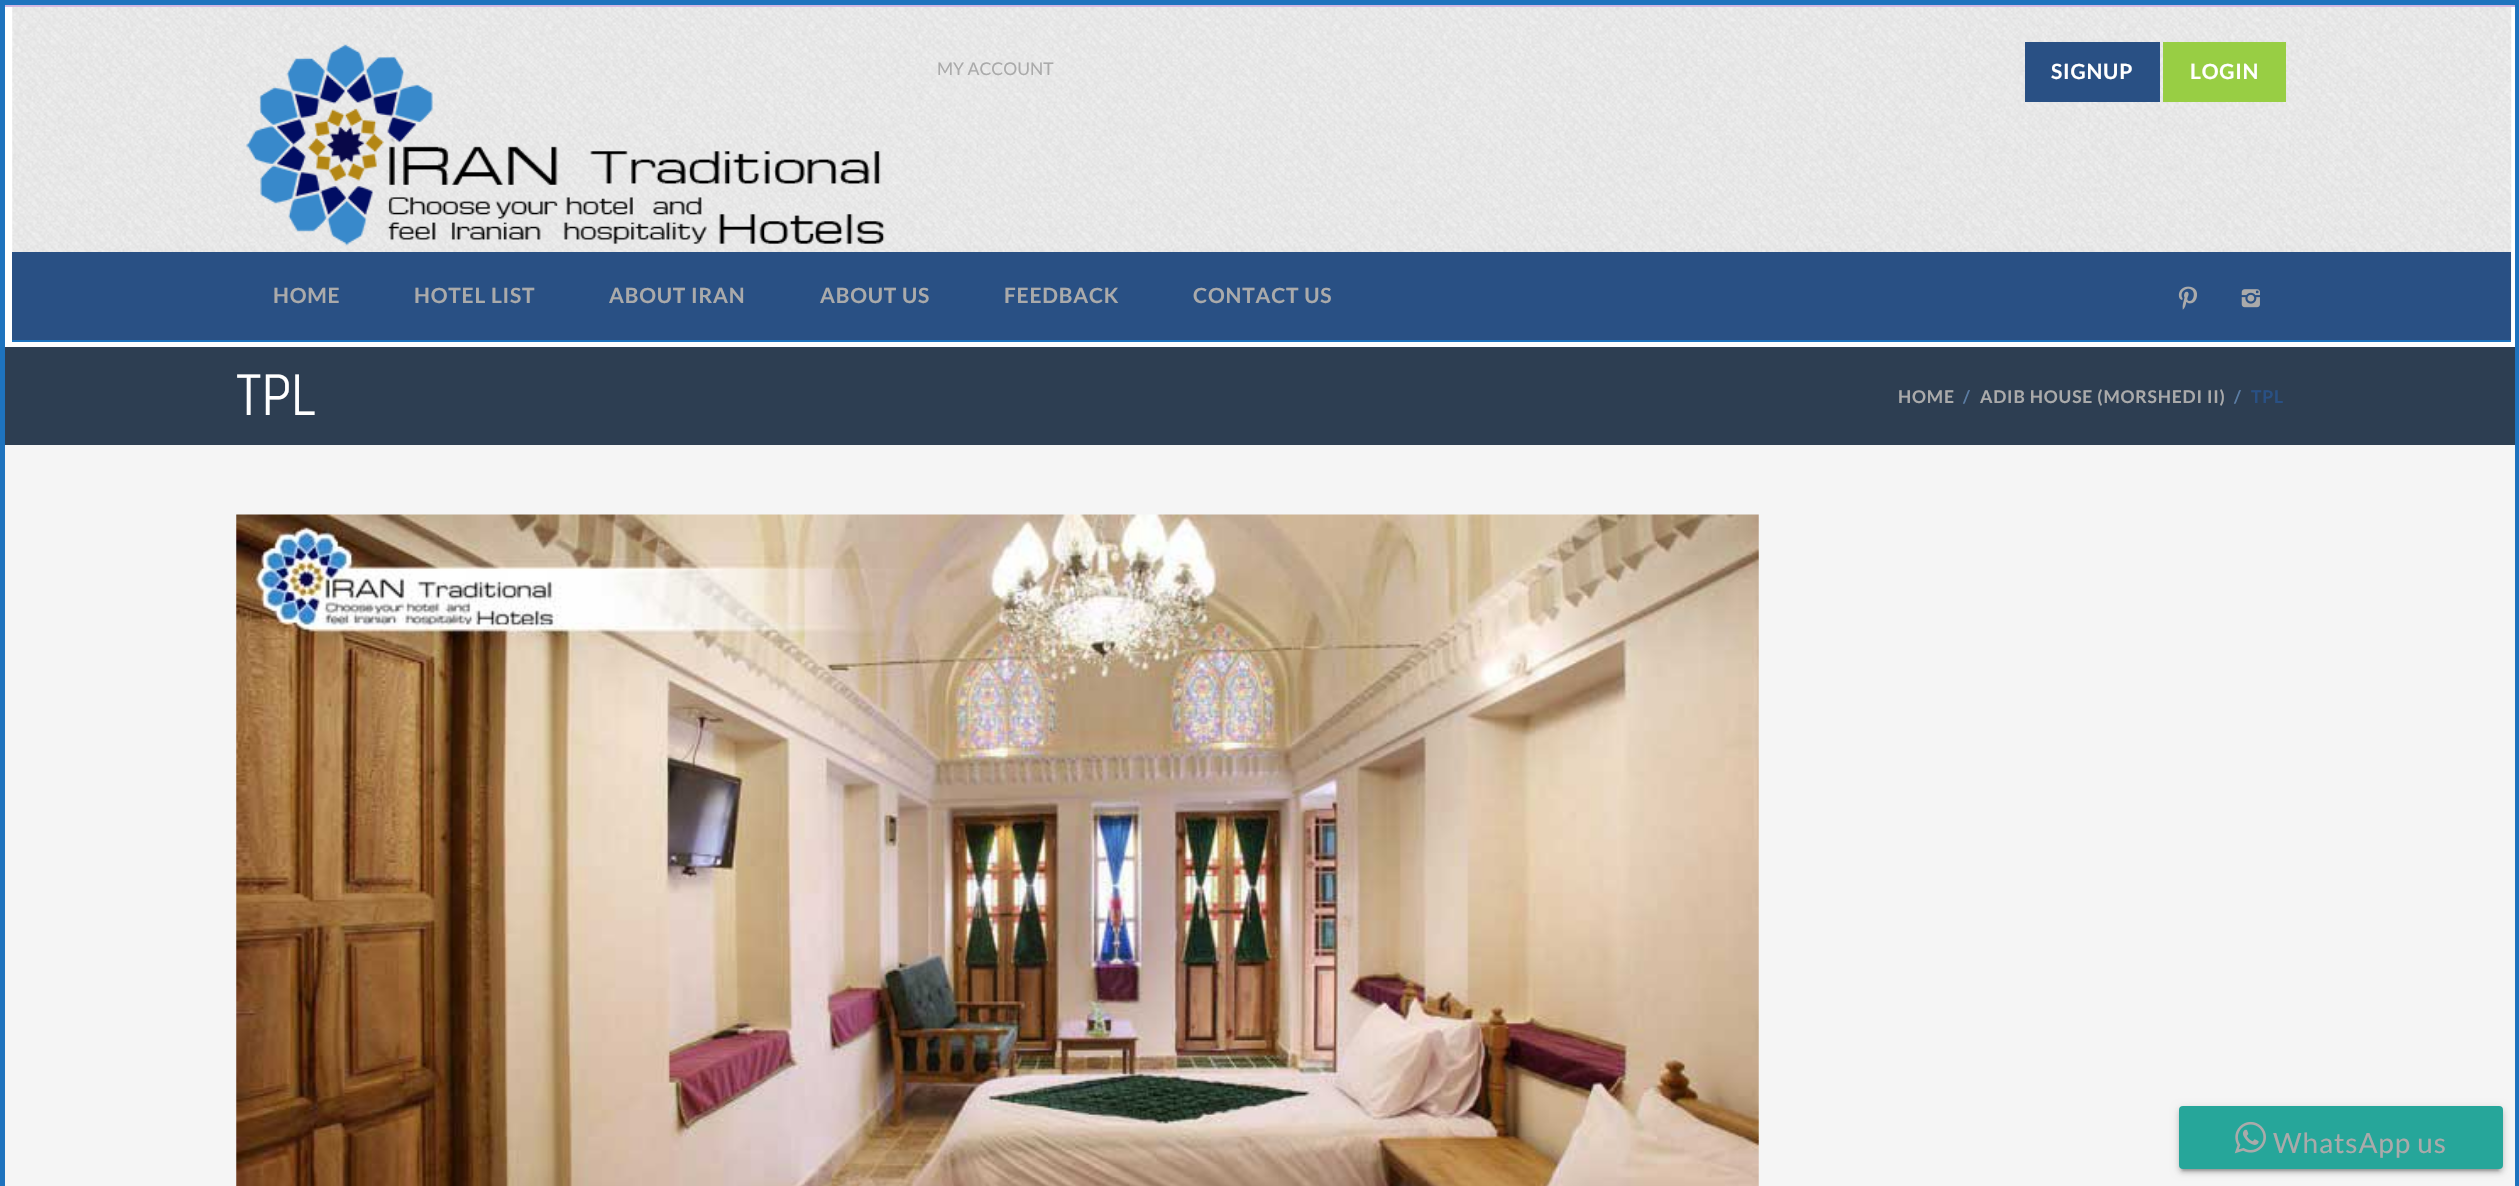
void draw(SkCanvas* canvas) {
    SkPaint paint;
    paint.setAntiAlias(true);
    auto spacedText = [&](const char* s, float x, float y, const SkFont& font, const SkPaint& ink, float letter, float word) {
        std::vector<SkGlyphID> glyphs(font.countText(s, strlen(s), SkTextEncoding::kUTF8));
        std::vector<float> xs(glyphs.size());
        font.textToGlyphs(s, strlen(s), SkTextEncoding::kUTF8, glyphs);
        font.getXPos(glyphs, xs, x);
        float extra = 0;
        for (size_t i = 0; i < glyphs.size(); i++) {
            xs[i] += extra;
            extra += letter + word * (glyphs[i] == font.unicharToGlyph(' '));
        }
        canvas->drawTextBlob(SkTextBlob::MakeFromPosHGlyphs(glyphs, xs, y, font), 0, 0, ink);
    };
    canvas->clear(0xFFD1B7E2);
    paint.setStyle(SkPaint::kStroke_Style);
    paint.setStrokeWidth(5);
    paint.setColor(0xFF1E73BE);
    canvas->drawRect(SkRect::MakeXYWH(2.5f, 2.5f, 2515, 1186), paint);
    paint.setStyle(SkPaint::kFill_Style);
    paint.setColor(0xFFFFFFFF);
    canvas->drawRect(SkRect::MakeXYWH(5, 7, 2510, 340), paint);
    canvas->drawImageRect(SkImages::DeferredFromEncodedData(SkData::MakeFromFileName("img1.png")), SkRect::MakeXYWH(12, 7, 2500, 335), SkSamplingOptions());
    paint.setColor(0xFF1E73BE);
    canvas->drawRect(SkRect::MakeXYWH(12, 340, 2499, 2), paint);
    canvas->drawImageRect(SkImages::DeferredFromEncodedData(SkData::MakeFromFileName("img2.png")), SkRect::MakeXYWH(246, 44, 639, 202), SkSamplingOptions());
    SkFont font1(fontMgr->matchFamilyStyle("Lato", SkFontStyle::Normal()), 17.5f);
    font1.setSubpixel(true);
    paint.setColor(0xFFAAAAAA);
    canvas->drawString("MY ACCOUNT", 937, 75, font1, paint);
    paint.setColor(0xFF295084);
    canvas->drawRect(SkRect::MakeXYWH(2025, 42, 135, 60), paint);
    SkFont font2(fontMgr->matchFamilyStyle("Lato", SkFontStyle::Bold()), 21);
    font2.setSubpixel(true);
    paint.setColor(0xFFFFFFFF);
    spacedText("SIGNUP", 2051, 79, font2, paint, 0.8f, 0);
    paint.setColor(0xFF98CE44);
    canvas->drawRect(SkRect::MakeXYWH(2163, 42, 123, 60), paint);
    paint.setColor(0xFFFFFFFF);
    spacedText("LOGIN", 2190, 79, font2, paint, 0.8f, 0);
    paint.setColor(0xFF295084);
    canvas->drawRect(SkRect::MakeXYWH(12, 252, 2499, 88), paint);
    paint.setColor(0xFFAAAAAA);
    spacedText("HOME", 273, 303, font2, paint, 0.8f, 0);
    spacedText("HOTEL LIST", 414, 303, font2, paint, 0.8f, 0);
    spacedText("ABOUT IRAN", 609, 303, font2, paint, 0.8f, 0);
    spacedText("ABOUT US", 820, 303, font2, paint, 0.8f, 0);
    spacedText("FEEDBACK", 1004, 303, font2, paint, 0.8f, 0);
    spacedText("CONTACT US", 1193, 303, font2, paint, 0.8f, 0);
    canvas->drawImageRect(SkImages::DeferredFromEncodedData(SkData::MakeFromFileName("img3.png")), SkRect::MakeXYWH(2178, 286, 19, 24), SkSamplingOptions());
    canvas->drawImageRect(SkImages::DeferredFromEncodedData(SkData::MakeFromFileName("img4.png")), SkRect::MakeXYWH(2241, 289, 19, 19), SkSamplingOptions());
    paint.setColor(0xFF2D3E52);
    canvas->drawRect(SkRect::MakeXYWH(5, 347, 2510, 98), paint);
    SkFont font3(fontMgr->matchFamilyStyle("Abel", SkFontStyle::Normal()), 58);
    font3.setSubpixel(true);
    paint.setColor(0xFFFFFFFF);
    canvas->drawString("TPL", 236, 415, font3, paint);
    SkFont font4(fontMgr->matchFamilyStyle("Lato", SkFontStyle::Bold()), 17.5f);
    font4.setSubpixel(true);
    paint.setColor(0xFFAAAAAA);
    spacedText("HOME", 1898, 403, font4, paint, 0.8f, 0);
    paint.setColor(0xFF5A7CA3);
    spacedText("/", 1963, 403, font4, paint, 0.8f, 0);
    paint.setColor(0xFFAAAAAA);
    spacedText("ADIB HOUSE (MORSHEDI II)", 1980, 403, font4, paint, 0.8f, 0);
    paint.setColor(0xFF5A7CA3);
    spacedText("/", 2234, 403, font4, paint, 0.8f, 0);
    paint.setColor(0xFF295084);
    spacedText("TPL", 2251, 403, font4, paint, 0.8f, 0);
    paint.setColor(0xFFF5F5F5);
    canvas->drawRect(SkRect::MakeXYWH(5, 445, 2510, 741), paint);
    canvas->drawImageRect(SkImages::DeferredFromEncodedData(SkData::MakeFromFileName("img5.png")), SkRect::MakeXYWH(236, 514, 1523, 672), SkSamplingOptions());
    paint.setColor(0x33000000);
    paint.setMaskFilter(SkMaskFilter::MakeBlur(kNormal_SkBlurStyle, 1));
    canvas->drawRect(SkRect::MakeXYWH(2182, 1115, 317, 56), paint);
    paint.setMaskFilter(nullptr);
    paint.setColor(0x1F000000);
    paint.setMaskFilter(SkMaskFilter::MakeBlur(kNormal_SkBlurStyle, 4.5f));
    canvas->drawRoundRect(SkRect::MakeXYWH(2179, 1108, 324, 63), 4, 4, paint);
    paint.setMaskFilter(nullptr);
    paint.setColor(0x24000000);
    paint.setMaskFilter(SkMaskFilter::MakeBlur(kNormal_SkBlurStyle, 2));
    canvas->drawRoundRect(SkRect::MakeXYWH(2179, 1110, 324, 63), 4, 4, paint);
    paint.setMaskFilter(nullptr);
    paint.setColor(0xFF26A69A);
    canvas->drawRoundRect(SkRect::MakeXYWH(2179, 1106, 324, 63), 4, 4, paint);
    canvas->drawImageRect(SkImages::DeferredFromEncodedData(SkData::MakeFromFileName("img6.png")), SkRect::MakeXYWH(2234, 1121, 32, 33), SkSamplingOptions());
    SkFont font5(fontMgr->matchFamilyStyle("Lato", SkFontStyle::Normal()), 28);
    font5.setSubpixel(true);
    paint.setColor(0xFFAAAAAA);
    spacedText("WhatsApp us", 2273, 1153, font5, paint, 0.9f, 0);
}
